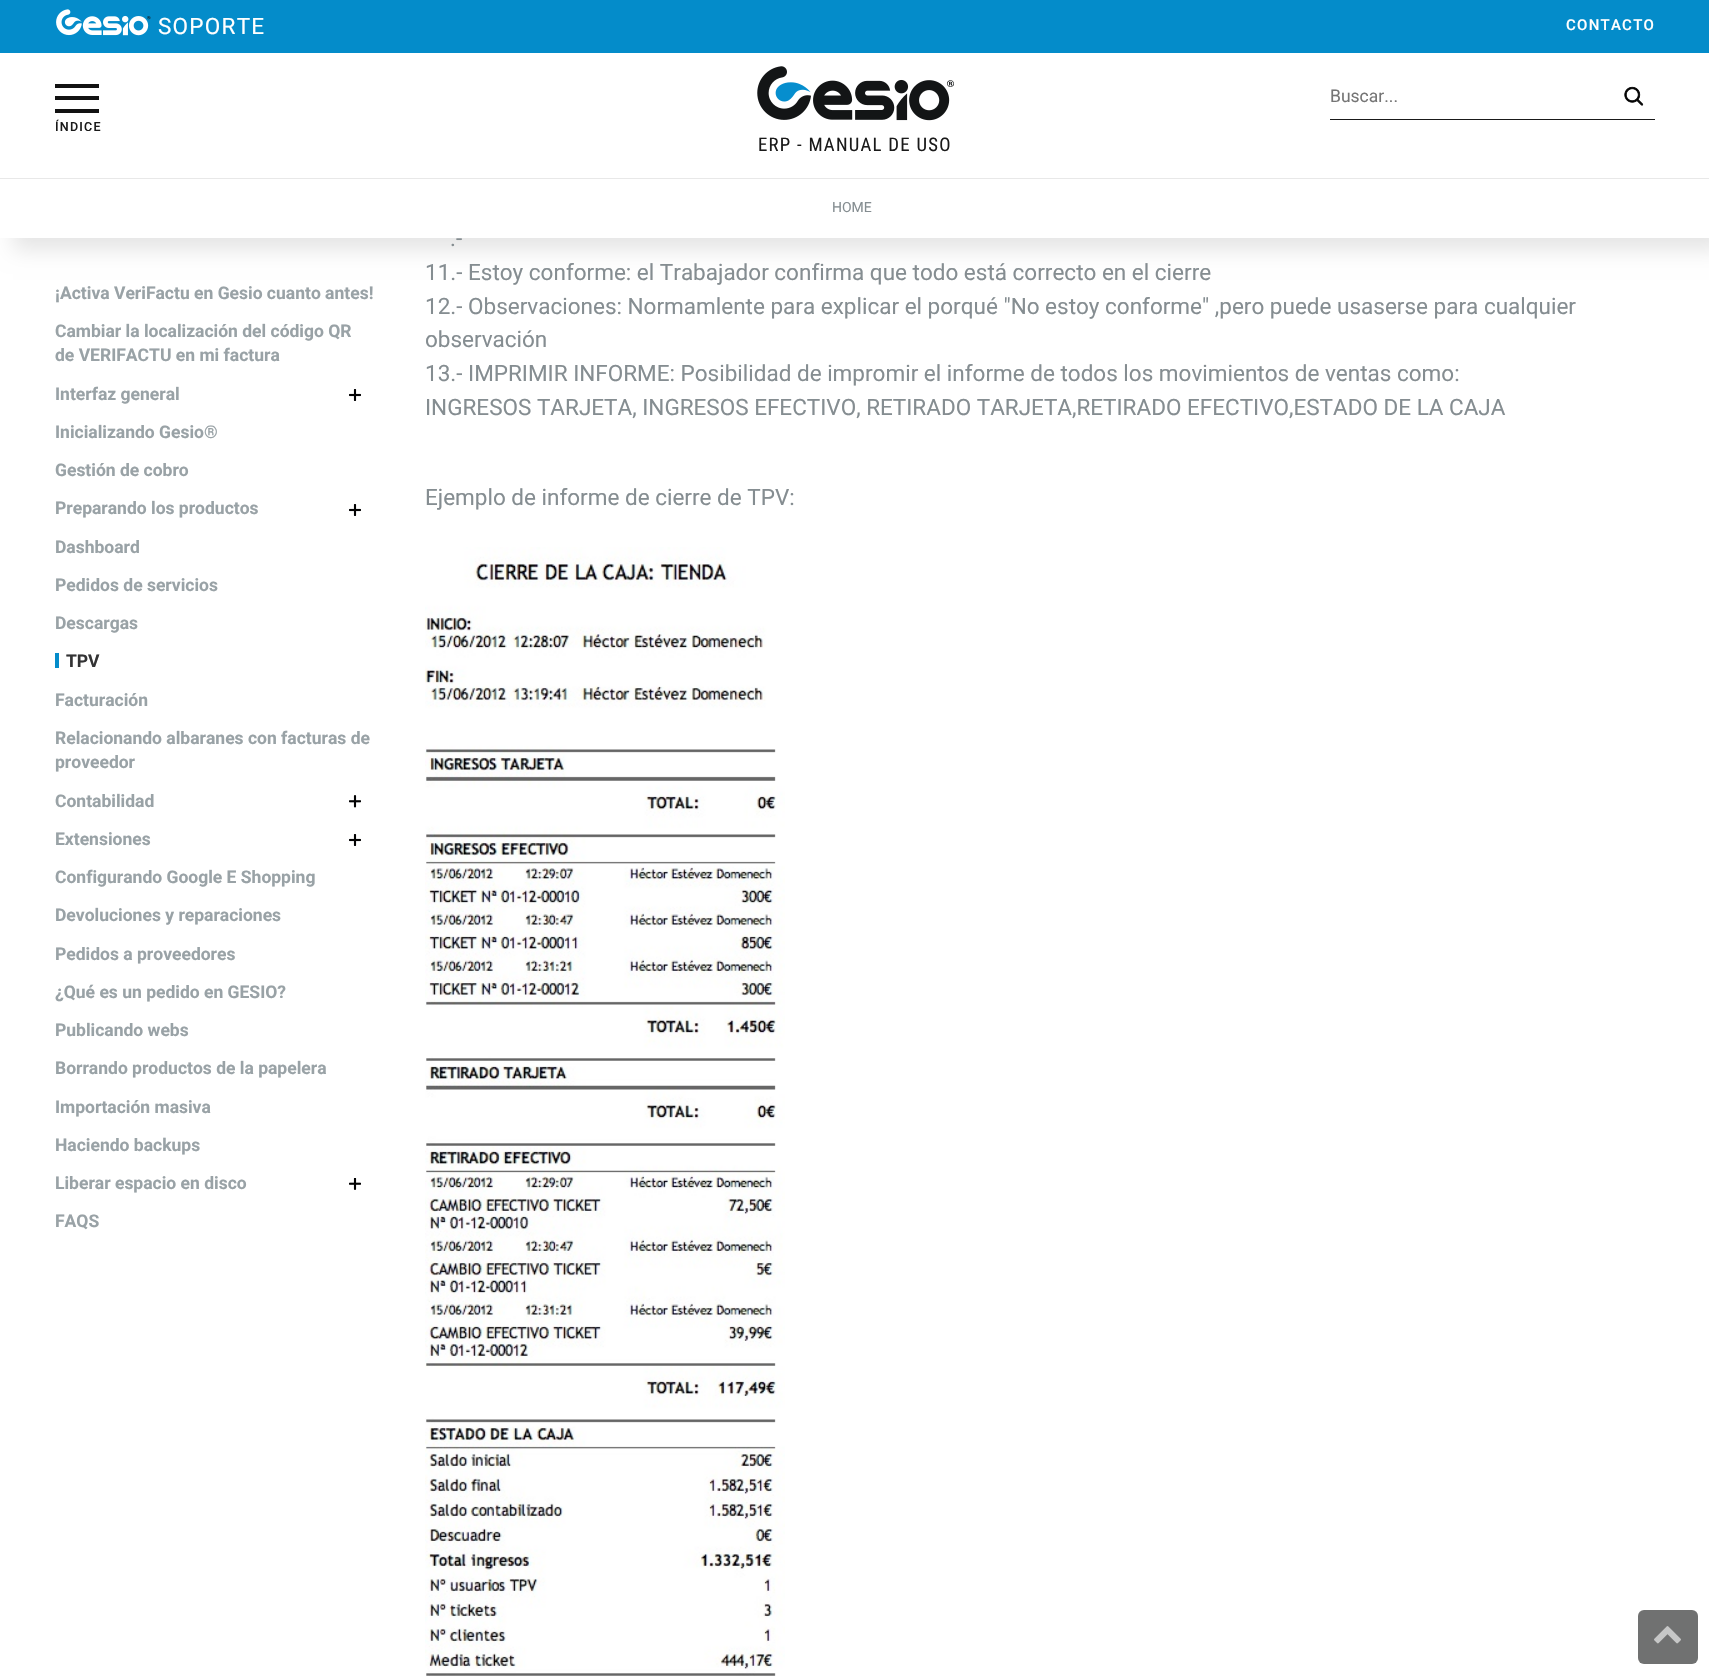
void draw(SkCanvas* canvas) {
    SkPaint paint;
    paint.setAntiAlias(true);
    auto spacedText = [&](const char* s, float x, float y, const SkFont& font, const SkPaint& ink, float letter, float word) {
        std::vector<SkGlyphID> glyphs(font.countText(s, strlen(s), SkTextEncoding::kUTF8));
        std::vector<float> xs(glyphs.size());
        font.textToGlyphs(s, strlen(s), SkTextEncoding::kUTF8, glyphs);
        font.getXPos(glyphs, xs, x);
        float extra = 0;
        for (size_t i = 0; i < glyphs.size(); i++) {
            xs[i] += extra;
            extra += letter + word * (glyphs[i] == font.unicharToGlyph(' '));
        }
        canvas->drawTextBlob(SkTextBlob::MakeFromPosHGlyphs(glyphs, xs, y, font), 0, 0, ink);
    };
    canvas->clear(0xFFFFFFFF);
    paint.setColor(0x1A000000);
    paint.setMaskFilter(SkMaskFilter::MakeBlur(kNormal_SkBlurStyle, 10));
    canvas->drawRect(SkRect::MakeXYWH(13, 13, 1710, 237), paint);
    paint.setMaskFilter(nullptr);
    paint.setColor(0xFFFFFFFF);
    canvas->drawRect(SkRect::MakeXYWH(0, 53, 1709, 185), paint);
    paint.setColor(0xFF048CCA);
    canvas->drawRect(SkRect::MakeXYWH(0, 0, 1709, 53), paint);
    canvas->drawImageRect(SkImages::DeferredFromEncodedData(SkData::MakeFromFileName("img1.png")), SkRect::MakeXYWH(56, 9, 95, 27), SkSamplingOptions());
    SkFont font1(fontMgr->matchFamilyStyle("Roboto", SkFontStyle::Normal()), 22.5f);
    font1.setSubpixel(true);
    paint.setColor(0xFFFFFFFF);
    spacedText("SOPORTE", 158, 34, font1, paint, 1.25f, 0);
    SkFont font2(fontMgr->matchFamilyStyle("Roboto", SkFontStyle(500, SkFontStyle::kNormal_Width, SkFontStyle::kUpright_Slant)), 15);
    font2.setSubpixel(true);
    spacedText("CONTACTO", 1566, 30, font2, paint, 1.25f, 0);
    paint.setColor(0xFF1A1A1A);
    canvas->drawRect(SkRect::MakeXYWH(1330, 119, 325, 1), paint);
    SkFont font3(fontMgr->matchFamilyStyle("Roboto", SkFontStyle::Normal()), 17.5f);
    font3.setSubpixel(true);
    paint.setColor(0xFF757575);
    canvas->drawString("Buscar...", 1330, 102, font3, paint);
    canvas->drawImageRect(SkImages::DeferredFromEncodedData(SkData::MakeFromFileName("img2.png")), SkRect::MakeXYWH(1624, 86, 20, 20), SkSamplingOptions());
    paint.setColor(0xFF121212);
    canvas->drawRect(SkRect::MakeXYWH(55, 84, 44, 4), paint);
    canvas->drawRect(SkRect::MakeXYWH(55, 96, 44, 4), paint);
    canvas->drawRect(SkRect::MakeXYWH(55, 109, 44, 4), paint);
    SkFont font4(fontMgr->matchFamilyStyle("Roboto", SkFontStyle(500, SkFontStyle::kNormal_Width, SkFontStyle::kUpright_Slant)), 12.5f);
    font4.setSubpixel(true);
    paint.setColor(0xFF1A1A1A);
    spacedText("ÍNDICE", 55, 131, font4, paint, 1.25f, 0);
    canvas->drawImageRect(SkImages::DeferredFromEncodedData(SkData::MakeFromFileName("img3.png")), SkRect::MakeXYWH(757, 66, 197, 55), SkSamplingOptions());
    SkFont font5(fontMgr->matchFamilyStyle("Roboto Condensed", SkFontStyle::Normal()), 18.75f);
    font5.setSubpixel(true);
    spacedText("ERP - MANUAL DE USO", 758, 151, font5, paint, 1.25f, 0);
    paint.setColor(0xFFE8E8E8);
    canvas->drawRect(SkRect::MakeXYWH(0, 178, 1709, 1), paint);
    SkFont font6(fontMgr->matchFamilyStyle("Roboto", SkFontStyle::Normal()), 14);
    font6.setSubpixel(true);
    paint.setColor(0xFF858D91);
    canvas->drawString("HOME", 832, 212, font6, paint);
    SkFont font7(fontMgr->matchFamilyStyle("Roboto", SkFontStyle::Bold()), 17.5f);
    font7.setSubpixel(true);
    paint.setColor(0xFF99A2A6);
    canvas->drawString("¡Activa VeriFactu en Gesio cuanto antes!", 55, 299, font7, paint);
    canvas->drawString("Cambiar la localización del código QR", 55, 337, font7, paint);
    canvas->drawString("de VERIFACTU en mi factura", 55, 361, font7, paint);
    canvas->drawImageRect(SkImages::DeferredFromEncodedData(SkData::MakeFromFileName("img4.png")), SkRect::MakeXYWH(349, 389, 12, 12), SkSamplingOptions());
    canvas->drawString("Interfaz general", 55, 400, font7, paint);
    canvas->drawString("Inicializando Gesio®", 55, 438, font7, paint);
    canvas->drawString("Gestión de cobro", 55, 476, font7, paint);
    canvas->drawImageRect(SkImages::DeferredFromEncodedData(SkData::MakeFromFileName("img4.png")), SkRect::MakeXYWH(349, 504, 12, 12), SkSamplingOptions());
    canvas->drawString("Preparando los productos", 55, 514, font7, paint);
    canvas->drawString("Dashboard", 55, 553, font7, paint);
    canvas->drawString("Pedidos de servicios", 55, 591, font7, paint);
    canvas->drawString("Descargas", 55, 629, font7, paint);
    paint.setColor(0xFF048CCA);
    canvas->drawRect(SkRect::MakeXYWH(55, 653, 4, 15), paint);
    paint.setColor(0xFF333334);
    canvas->drawString("TPV", 66, 667, font7, paint);
    paint.setColor(0xFF99A2A6);
    canvas->drawString("Facturación", 55, 706, font7, paint);
    canvas->drawString("Relacionando albaranes con facturas de", 55, 744, font7, paint);
    canvas->drawString("proveedor", 55, 768, font7, paint);
    canvas->drawImageRect(SkImages::DeferredFromEncodedData(SkData::MakeFromFileName("img5.png")), SkRect::MakeXYWH(349, 795, 12, 13), SkSamplingOptions());
    canvas->drawString("Contabilidad", 55, 807, font7, paint);
    canvas->drawImageRect(SkImages::DeferredFromEncodedData(SkData::MakeFromFileName("img4.png")), SkRect::MakeXYWH(349, 834, 12, 12), SkSamplingOptions());
    canvas->drawString("Extensiones", 55, 845, font7, paint);
    canvas->drawString("Configurando Google E Shopping", 55, 883, font7, paint);
    canvas->drawString("Devoluciones y reparaciones", 55, 921, font7, paint);
    canvas->drawString("Pedidos a proveedores", 55, 960, font7, paint);
    canvas->drawString("¿Qué es un pedido en GESIO?", 55, 998, font7, paint);
    canvas->drawString("Publicando webs", 55, 1036, font7, paint);
    canvas->drawString("Borrando productos de la papelera", 55, 1074, font7, paint);
    canvas->drawString("Importación masiva", 55, 1113, font7, paint);
    canvas->drawString("Haciendo backups", 55, 1151, font7, paint);
    canvas->drawImageRect(SkImages::DeferredFromEncodedData(SkData::MakeFromFileName("img6.png")), SkRect::MakeXYWH(349, 1178, 12, 12), SkSamplingOptions());
    canvas->drawString("Liberar espacio en disco", 55, 1189, font7, paint);
    canvas->drawString("FAQS", 55, 1227, font7, paint);
    paint.setColor(0xFF858D91);
    canvas->drawString(".-", 450, 246, font1, paint);
    canvas->drawString("11.- Estoy conforme: el Trabajador confirma que todo está correcto en el cierre", 425, 280, font1, paint);
    canvas->drawString("12.- Observaciones: Normamlente para explicar el porqué \"No estoy conforme\" ,pero puede usaserse para cualquier", 425, 314, font1, paint);
    canvas->drawString("observación", 425, 347, font1, paint);
    canvas->drawString("13.- IMPRIMIR INFORME: Posibilidad de impromir el informe de todos los movimientos de ventas como:", 425, 381, font1, paint);
    canvas->drawString("INGRESOS TARJETA, INGRESOS EFECTIVO, RETIRADO TARJETA,RETIRADO EFECTIVO,ESTADO DE LA CAJA", 425, 415, font1, paint);
    canvas->drawString("Ejemplo de informe de cierre de TPV:", 425, 505, font1, paint);
    canvas->drawImageRect(SkImages::DeferredFromEncodedData(SkData::MakeFromFileName("img7.png")), SkRect::MakeXYWH(425, 547, 360, 1129), SkSamplingOptions());
    paint.setColor(0xFF707171);
    canvas->drawRoundRect(SkRect::MakeXYWH(1638, 1610, 60, 54), 6, 6, paint);
    canvas->drawImageRect(SkImages::DeferredFromEncodedData(SkData::MakeFromFileName("img8.png")), SkRect::MakeXYWH(1654, 1626, 27, 18), SkSamplingOptions());
}
